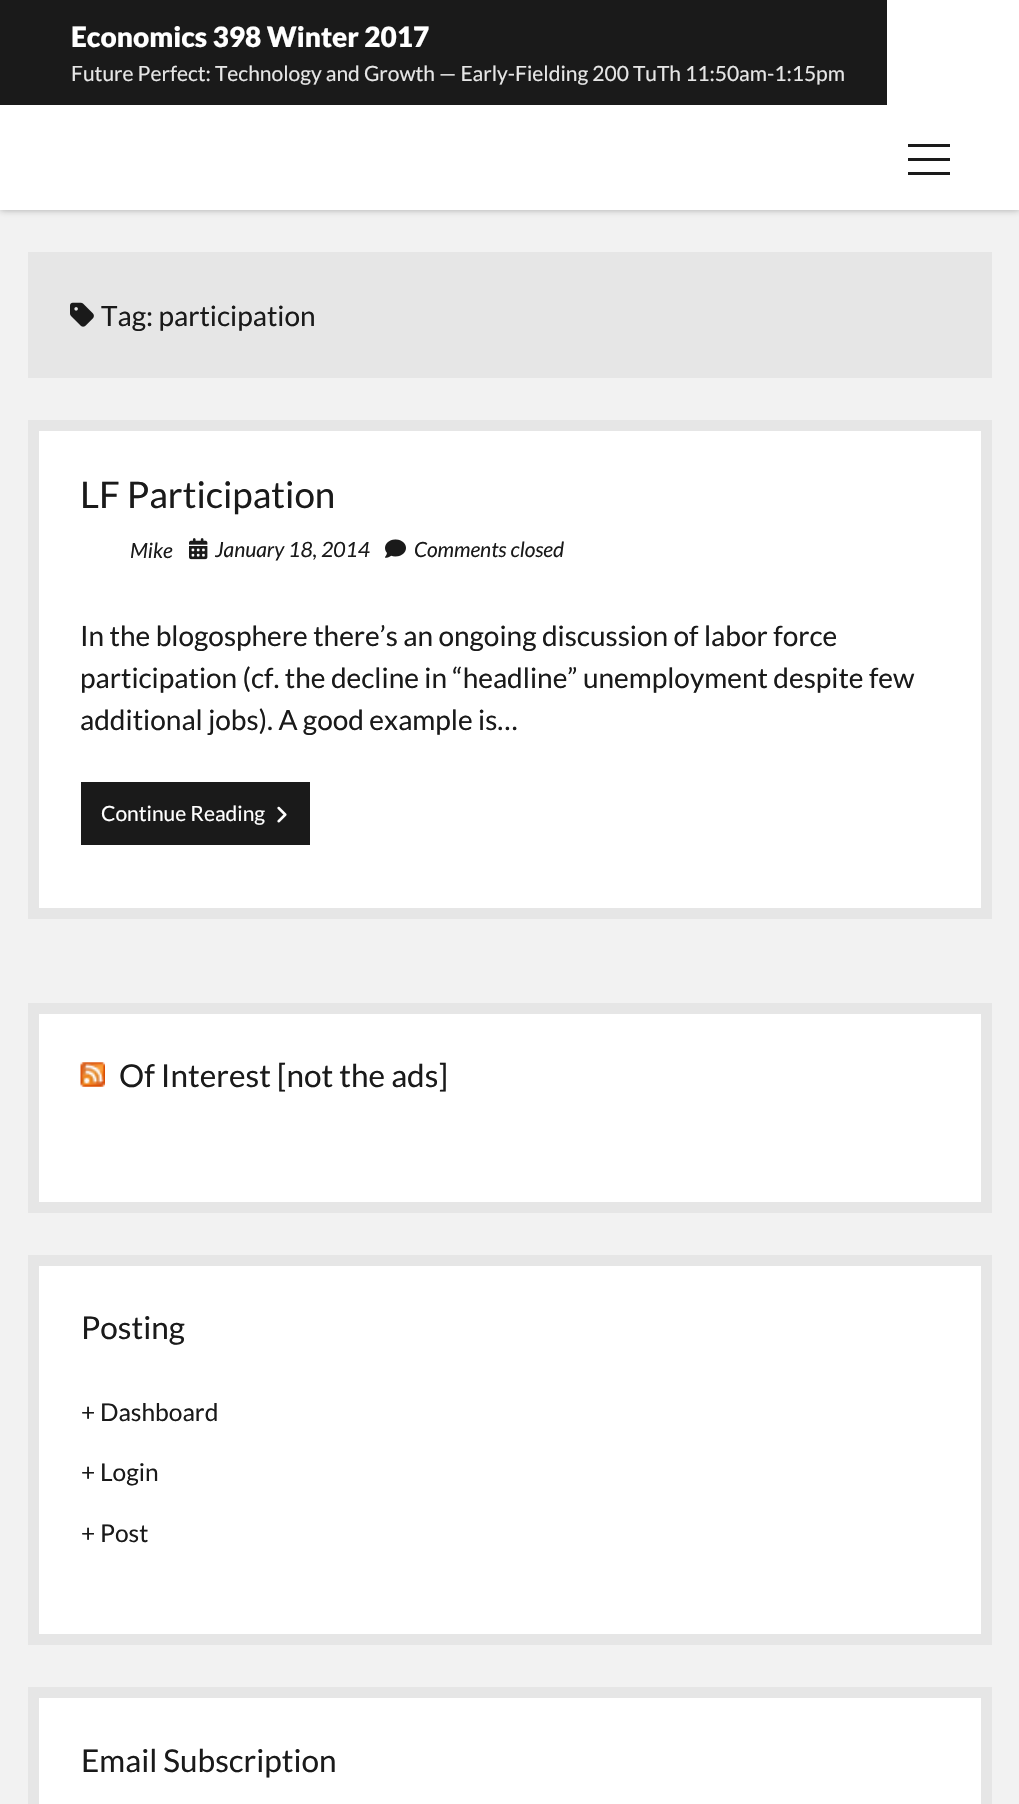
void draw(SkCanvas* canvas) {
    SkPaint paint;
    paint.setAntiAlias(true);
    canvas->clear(0xFFF2F2F2);
    paint.setColor(0x4D000000);
    paint.setMaskFilter(SkMaskFilter::MakeBlur(kNormal_SkBlurStyle, 3.5f));
    canvas->drawRect(SkRect::MakeXYWH(0, 0, 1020, 210), paint);
    paint.setMaskFilter(nullptr);
    paint.setColor(0xFFFFFFFF);
    canvas->drawRect(SkRect::MakeXYWH(0, 0, 1019, 210), paint);
    paint.setColor(0xFF1A1A1A);
    canvas->drawRect(SkRect::MakeXYWH(0, 0, 887, 105), paint);
    SkFont font1(fontMgr->matchFamilyStyle("Lato", SkFontStyle(900, SkFontStyle::kNormal_Width, SkFontStyle::kUpright_Slant)), 28);
    font1.setSubpixel(true);
    paint.setColor(0xFFFFFFFF);
    canvas->drawString("Economics 398 Winter 2017", 71, 47, font1, paint);
    SkFont font2(fontMgr->matchFamilyStyle("Lato", SkFontStyle::Normal()), 21);
    font2.setSubpixel(true);
    paint.setColor(0xFFE6E6E6);
    canvas->drawString("Future Perfect: Technology and Growth — Early-Fielding 200 TuTh 11:50am-1:15pm", 71, 81, font2, paint);
    paint.setColor(0xFF1A1A1A);
    canvas->drawRect(SkRect::MakeXYWH(908, 172, 42, 3), paint);
    canvas->drawRect(SkRect::MakeXYWH(908, 158, 42, 3), paint);
    canvas->drawRect(SkRect::MakeXYWH(908, 144, 42, 3), paint);
    paint.setColor(0xFFE6E6E6);
    canvas->drawRect(SkRect::MakeXYWH(28, 252, 964, 126), paint);
    canvas->drawImageRect(SkImages::DeferredFromEncodedData(SkData::MakeFromFileName("img1.png")), SkRect::MakeXYWH(70, 302, 24, 25), SkSamplingOptions());
    SkFont font3(fontMgr->matchFamilyStyle("Lato", SkFontStyle::Normal()), 28);
    font3.setSubpixel(true);
    paint.setColor(0xFF1A1A1A);
    canvas->drawString("Tag: participation", 101, 326, font3, paint);
    paint.setColor(0xFFFFFFFF);
    canvas->drawRect(SkRect::MakeXYWH(33.5f, 425.5f, 953, 488), paint);
    paint.setStyle(SkPaint::kStroke_Style);
    paint.setStrokeWidth(11);
    paint.setColor(0xFFE6E6E6);
    canvas->drawRect(SkRect::MakeXYWH(33.5f, 425.5f, 953, 488), paint);
    SkFont font4(fontMgr->matchFamilyStyle("Lato", SkFontStyle::Normal()), 36.75f);
    font4.setSubpixel(true);
    paint.setStyle(SkPaint::kFill_Style);
    paint.setColor(0xFF1A1A1A);
    canvas->drawString("LF Participation", 80, 508, font4, paint);
    SkFont font5(fontMgr->matchFamilyStyle("Lato", SkFontStyle::Italic()), 21);
    font5.setSubpixel(true);
    canvas->drawString("Mike", 130, 558, font5, paint);
    canvas->drawImageRect(SkImages::DeferredFromEncodedData(SkData::MakeFromFileName("img2.png")), SkRect::MakeXYWH(189, 538, 19, 22), SkSamplingOptions());
    canvas->drawString("January 18, 2014", 215, 557, font5, paint);
    canvas->drawImageRect(SkImages::DeferredFromEncodedData(SkData::MakeFromFileName("img3.png")), SkRect::MakeXYWH(385, 539, 21, 19), SkSamplingOptions());
    canvas->drawString("Comments closed", 414, 557, font5, paint);
    canvas->drawString("In the blogosphere there’s an ongoing discussion of labor force", 80, 646, font3, paint);
    canvas->drawString("participation (cf. the decline in “headline” unemployment despite few", 80, 688, font3, paint);
    canvas->drawString("additional jobs). A good example is…", 80, 730, font3, paint);
    canvas->drawRect(SkRect::MakeXYWH(81, 782, 229, 63), paint);
    paint.setColor(0xFFFFFFFF);
    canvas->drawString("Continue Reading", 101, 821, font2, paint);
    canvas->drawImageRect(SkImages::DeferredFromEncodedData(SkData::MakeFromFileName("img4.png")), SkRect::MakeXYWH(277, 806, 10, 17), SkSamplingOptions());
    canvas->drawRect(SkRect::MakeXYWH(33.5f, 1008.5f, 953, 199), paint);
    paint.setStyle(SkPaint::kStroke_Style);
    paint.setColor(0xFFE6E6E6);
    canvas->drawRect(SkRect::MakeXYWH(33.5f, 1008.5f, 953, 199), paint);
    canvas->drawImageRect(SkImages::DeferredFromEncodedData(SkData::MakeFromFileName("img5.png")), SkRect::MakeXYWH(80, 1062, 25, 25), SkSamplingOptions());
    SkFont font6(fontMgr->matchFamilyStyle("Lato", SkFontStyle::Normal()), 31.5f);
    font6.setSubpixel(true);
    paint.setStyle(SkPaint::kFill_Style);
    paint.setColor(0xFF1A1A1A);
    canvas->drawString("Of Interest [not the ads]", 119, 1087, font6, paint);
    paint.setColor(0xFFFFFFFF);
    canvas->drawRect(SkRect::MakeXYWH(33.5f, 1260.5f, 953, 379), paint);
    paint.setStyle(SkPaint::kStroke_Style);
    paint.setColor(0xFFE6E6E6);
    canvas->drawRect(SkRect::MakeXYWH(33.5f, 1260.5f, 953, 379), paint);
    paint.setStyle(SkPaint::kFill_Style);
    paint.setColor(0xFF1A1A1A);
    canvas->drawString("Posting", 81, 1339, font6, paint);
    SkFont font7(fontMgr->matchFamilyStyle("Lato", SkFontStyle::Normal()), 24.5f);
    font7.setSubpixel(true);
    canvas->drawString("+ Dashboard", 81, 1421, font7, paint);
    canvas->drawString("+ Login", 81, 1481, font7, paint);
    canvas->drawString("+ Post", 81, 1542, font7, paint);
    paint.setColor(0xFFFFFFFF);
    canvas->drawRect(SkRect::MakeXYWH(33.5f, 1692.5f, 953, 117), paint);
    paint.setStyle(SkPaint::kStroke_Style);
    paint.setColor(0xFFE6E6E6);
    canvas->drawRect(SkRect::MakeXYWH(33.5f, 1692.5f, 953, 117), paint);
    paint.setStyle(SkPaint::kFill_Style);
    paint.setColor(0xFF1A1A1A);
    canvas->drawString("Email Subscription", 81, 1772, font6, paint);
}
